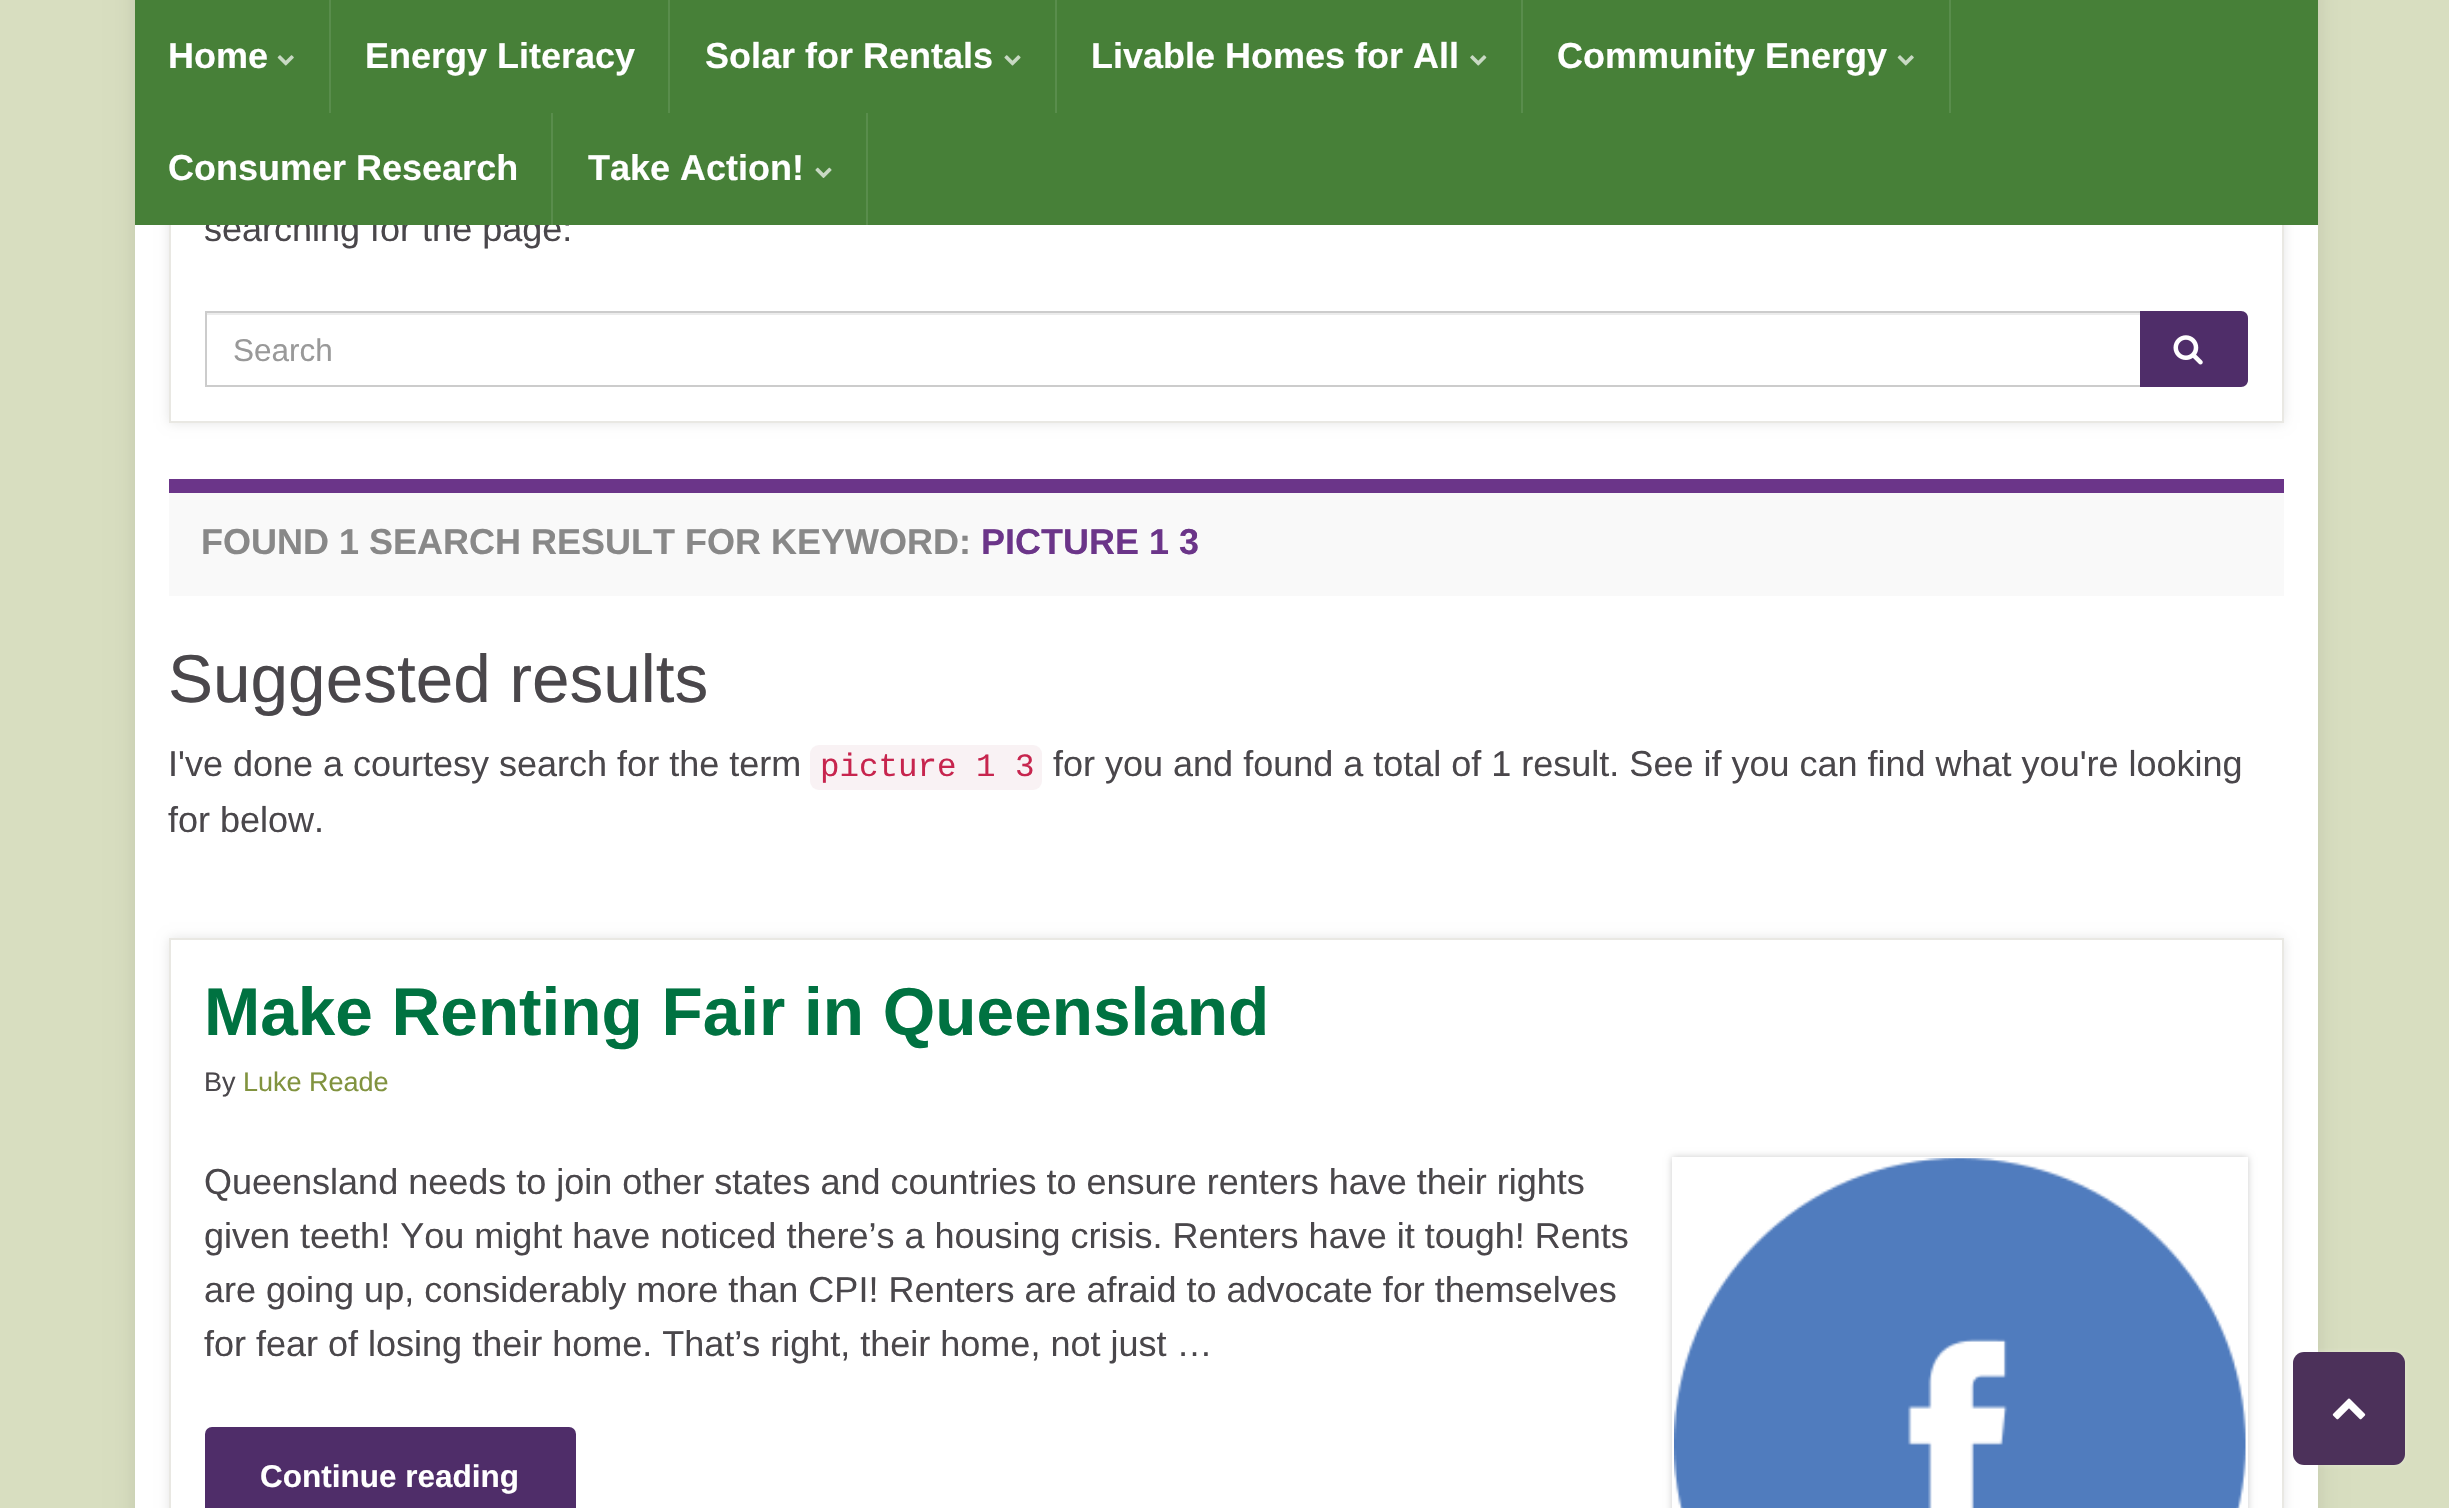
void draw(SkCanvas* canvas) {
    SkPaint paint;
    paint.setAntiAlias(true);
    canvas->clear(0xFFD8DEC0);
    paint.setColor(0x1A000000);
    paint.setMaskFilter(SkMaskFilter::MakeBlur(kNormal_SkBlurStyle, 11));
    canvas->drawRect(SkRect::MakeXYWH(135, -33, 2183, 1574), paint);
    paint.setMaskFilter(nullptr);
    paint.setColor(0xFFFFFFFF);
    canvas->drawRect(SkRect::MakeXYWH(135, 225, 2183, 1283), paint);
    paint.setColor(0x1A000000);
    paint.setMaskFilter(SkMaskFilter::MakeBlur(kNormal_SkBlurStyle, 5.5f));
    canvas->drawRect(SkRect::MakeXYWH(169, -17, 2115, 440), paint);
    paint.setMaskFilter(nullptr);
    paint.setColor(0xFFFFFFFF);
    canvas->drawRect(SkRect::MakeXYWH(171, 225, 2111, 196), paint);
    paint.setStyle(SkPaint::kStroke_Style);
    paint.setStrokeWidth(2);
    paint.setColor(0xFFE9E8E3);
    canvas->drawRect(SkRect::MakeXYWH(170, -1, 2113, 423), paint);
    SkFont font1(fontMgr->matchFamilyStyle("Liberation Sans", SkFontStyle::Normal()), 36);
    font1.setSubpixel(true);
    paint.setStyle(SkPaint::kFill_Style);
    paint.setColor(0xFF4A474B);
    canvas->drawString("searching for the page:", 204, 241, font1, paint);
    paint.setColor(0xFF478038);
    canvas->drawRect(SkRect::MakeXYWH(135, 0, 2183, 225), paint);
    paint.setColor(0xFF598D4C);
    canvas->drawRect(SkRect::MakeXYWH(329, 0, 2, 113), paint);
    SkFont font2(fontMgr->matchFamilyStyle("Liberation Sans", SkFontStyle::Bold()), 36);
    font2.setSubpixel(true);
    paint.setColor(0xFFFFFFFF);
    canvas->drawString("Home", 168, 68, font2, paint);
    canvas->drawImageRect(SkImages::DeferredFromEncodedData(SkData::MakeFromFileName("img1.png")), SkRect::MakeXYWH(277, 55, 17, 11), SkSamplingOptions());
    paint.setColor(0xFF598D4C);
    canvas->drawRect(SkRect::MakeXYWH(668, 0, 2, 113), paint);
    paint.setColor(0xFFFFFFFF);
    canvas->drawString("Energy Literacy", 365, 68, font2, paint);
    paint.setColor(0xFF598D4C);
    canvas->drawRect(SkRect::MakeXYWH(1055, 0, 2, 113), paint);
    paint.setColor(0xFFFFFFFF);
    canvas->drawString("Solar for Rentals", 705, 68, font2, paint);
    canvas->drawImageRect(SkImages::DeferredFromEncodedData(SkData::MakeFromFileName("img2.png")), SkRect::MakeXYWH(1004, 55, 17, 11), SkSamplingOptions());
    paint.setColor(0xFF598D4C);
    canvas->drawRect(SkRect::MakeXYWH(1521, 0, 2, 113), paint);
    paint.setColor(0xFFFFFFFF);
    canvas->drawString("Livable Homes for All", 1091, 68, font2, paint);
    canvas->drawImageRect(SkImages::DeferredFromEncodedData(SkData::MakeFromFileName("img3.png")), SkRect::MakeXYWH(1470, 55, 17, 11), SkSamplingOptions());
    paint.setColor(0xFF598D4C);
    canvas->drawRect(SkRect::MakeXYWH(1949, 0, 2, 113), paint);
    paint.setColor(0xFFFFFFFF);
    canvas->drawString("Community Energy", 1557, 68, font2, paint);
    canvas->drawImageRect(SkImages::DeferredFromEncodedData(SkData::MakeFromFileName("img1.png")), SkRect::MakeXYWH(1897, 55, 17, 11), SkSamplingOptions());
    paint.setColor(0xFF598D4C);
    canvas->drawRect(SkRect::MakeXYWH(551, 113, 2, 112), paint);
    paint.setColor(0xFFFFFFFF);
    canvas->drawString("Consumer Research", 168, 180, font2, paint);
    paint.setColor(0xFF598D4C);
    canvas->drawRect(SkRect::MakeXYWH(866, 113, 2, 112), paint);
    paint.setColor(0xFFFFFFFF);
    canvas->drawString("Take Action!", 588, 180, font2, paint);
    canvas->drawImageRect(SkImages::DeferredFromEncodedData(SkData::MakeFromFileName("img4.png")), SkRect::MakeXYWH(815, 167, 17, 11), SkSamplingOptions());
    paint.setColor(0xFFECECEC);
    canvas->drawRect(SkRect::MakeXYWH(207, 313, 1933, 2), paint);
    paint.setStyle(SkPaint::kStroke_Style);
    paint.setColor(0xFFCCCCCC);
    canvas->drawRect(SkRect::MakeXYWH(206, 312, 1935, 74), paint);
    SkFont font3(fontMgr->matchFamilyStyle("Liberation Sans", SkFontStyle::Normal()), 31.5f);
    font3.setSubpixel(true);
    paint.setStyle(SkPaint::kFill_Style);
    paint.setColor(0xFF999999);
    canvas->drawString("Search", 233, 361, font3, paint);
    paint.setColor(0xFF4F2D69);
    canvas->drawPath(SkPathBuilder().moveTo(2140, 311).lineTo(2241, 311).cubicTo(2245, 311, 2248, 314, 2248, 318).lineTo(2248, 380).cubicTo(2248, 384, 2245, 387, 2241, 387).lineTo(2140, 387).close().detach(), paint);
    canvas->drawImageRect(SkImages::DeferredFromEncodedData(SkData::MakeFromFileName("img5.png")), SkRect::MakeXYWH(2173, 335, 30, 30), SkSamplingOptions());
    paint.setColor(0xFFF9F9F9);
    canvas->drawRect(SkRect::MakeXYWH(169, 493, 2115, 103), paint);
    paint.setColor(0xFF6B3589);
    canvas->drawRect(SkRect::MakeXYWH(169, 479, 2115, 14), paint);
    paint.setColor(0xFF888888);
    canvas->drawString("FOUND 1 SEARCH RESULT FOR KEYWORD:", 201, 554, font2, paint);
    paint.setColor(0xFF6B3589);
    canvas->drawString("PICTURE 1 3", 981, 554, font2, paint);
    SkFont font4(fontMgr->matchFamilyStyle("Liberation Sans", SkFontStyle::Normal()), 67.5f);
    font4.setSubpixel(true);
    paint.setColor(0xFF4A474B);
    canvas->drawString("Suggested results", 168, 702, font4, paint);
    canvas->drawString("I've done a courtesy search for the term", 168, 776, font1, paint);
    paint.setColor(0xFFF9F2F4);
    canvas->drawRoundRect(SkRect::MakeXYWH(810, 745, 232, 45), 9, 9, paint);
    SkFont font5(fontMgr->matchFamilyStyle("Liberation Mono", SkFontStyle::Normal()), 32.5f);
    font5.setSubpixel(true);
    paint.setColor(0xFFC7254E);
    canvas->drawString("picture 1 3", 820, 776, font5, paint);
    paint.setColor(0xFF4A474B);
    canvas->drawString("for you and found a total of 1 result. See if you can find what you're looking", 1053, 776, font1, paint);
    canvas->drawString("for below.", 168, 832, font1, paint);
    paint.setColor(0x1A000000);
    paint.setMaskFilter(SkMaskFilter::MakeBlur(kNormal_SkBlurStyle, 5.5f));
    canvas->drawRect(SkRect::MakeXYWH(169, 938, 2115, 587), paint);
    paint.setMaskFilter(nullptr);
    paint.setColor(0xFFFFFFFF);
    canvas->drawRect(SkRect::MakeXYWH(170, 939, 2113, 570), paint);
    paint.setStyle(SkPaint::kStroke_Style);
    paint.setColor(0xFFE9E8E3);
    canvas->drawRect(SkRect::MakeXYWH(170, 939, 2113, 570), paint);
    SkFont font6(fontMgr->matchFamilyStyle("Liberation Sans", SkFontStyle::Bold()), 67.5f);
    font6.setSubpixel(true);
    paint.setStyle(SkPaint::kFill_Style);
    paint.setColor(0xFF007241);
    canvas->drawString("Make Renting Fair in Queensland", 204, 1035, font6, paint);
    SkFont font7(fontMgr->matchFamilyStyle("Liberation Sans", SkFontStyle::Normal()), 27);
    font7.setSubpixel(true);
    paint.setColor(0xFF4A474B);
    canvas->drawString("By", 204, 1091, font7, paint);
    paint.setColor(0xFF81933F);
    canvas->drawString("Luke Reade", 243, 1091, font7, paint);
    paint.setColor(0xFF4A474B);
    canvas->drawString("Queensland needs to join other states and countries to ensure renters have their rights", 204, 1194, font1, paint);
    canvas->drawString("given teeth! You might have noticed there’s a housing crisis. Renters have it tough! Rents", 204, 1248, font1, paint);
    canvas->drawString("are going up, considerably more than CPI! Renters are afraid to advocate for themselves", 204, 1302, font1, paint);
    canvas->drawString("for fear of losing their home. That’s right, their home, not just …", 204, 1356, font1, paint);
    canvas->save();
    canvas->clipPath(SkPathBuilder(SkPathFillType::kEvenOdd).moveTo(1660, 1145).lineTo(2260, 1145).lineTo(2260, 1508).lineTo(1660, 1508).close().moveTo(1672, 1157).lineTo(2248, 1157).lineTo(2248, 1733).lineTo(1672, 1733).close().detach(), true);
    paint.setColor(0x33000000);
    paint.setMaskFilter(SkMaskFilter::MakeBlur(kNormal_SkBlurStyle, 3.5f));
    canvas->drawRect(SkRect::MakeXYWH(1672, 1157, 576, 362), paint);
    paint.setMaskFilter(nullptr);
    canvas->restore();
    paint.setStyle(SkPaint::kStroke_Style);
    paint.setColor(0xFFFFFFFF);
    canvas->drawRect(SkRect::MakeXYWH(1673, 1158, 574, 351), paint);
    canvas->drawImageRect(SkImages::DeferredFromEncodedData(SkData::MakeFromFileName("img6.png")), SkRect::MakeXYWH(1674, 1158, 572, 350), SkSamplingOptions());
    paint.setStyle(SkPaint::kFill_Style);
    paint.setColor(0xFF4F2D69);
    canvas->drawRoundRect(SkRect::MakeXYWH(205, 1427, 371, 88), 7, 7, paint);
    SkFont font8(fontMgr->matchFamilyStyle("Liberation Sans", SkFontStyle::Bold()), 31.5f);
    font8.setSubpixel(true);
    paint.setColor(0xFFFFFFFF);
    canvas->drawString("Continue reading", 260, 1487, font8, paint);
    paint.setColor(0x4DFFFFFF);
    paint.setMaskFilter(SkMaskFilter::MakeBlur(kNormal_SkBlurStyle, 2));
    canvas->drawRoundRect(SkRect::MakeXYWH(2293, 1352, 112, 113), 11, 11, paint);
    paint.setMaskFilter(nullptr);
    paint.setColor(0xFF4C315A);
    canvas->drawRoundRect(SkRect::MakeXYWH(2293, 1352, 112, 113), 11, 11, paint);
    canvas->drawImageRect(SkImages::DeferredFromEncodedData(SkData::MakeFromFileName("img7.png")), SkRect::MakeXYWH(2332, 1398, 34, 22), SkSamplingOptions());
}
